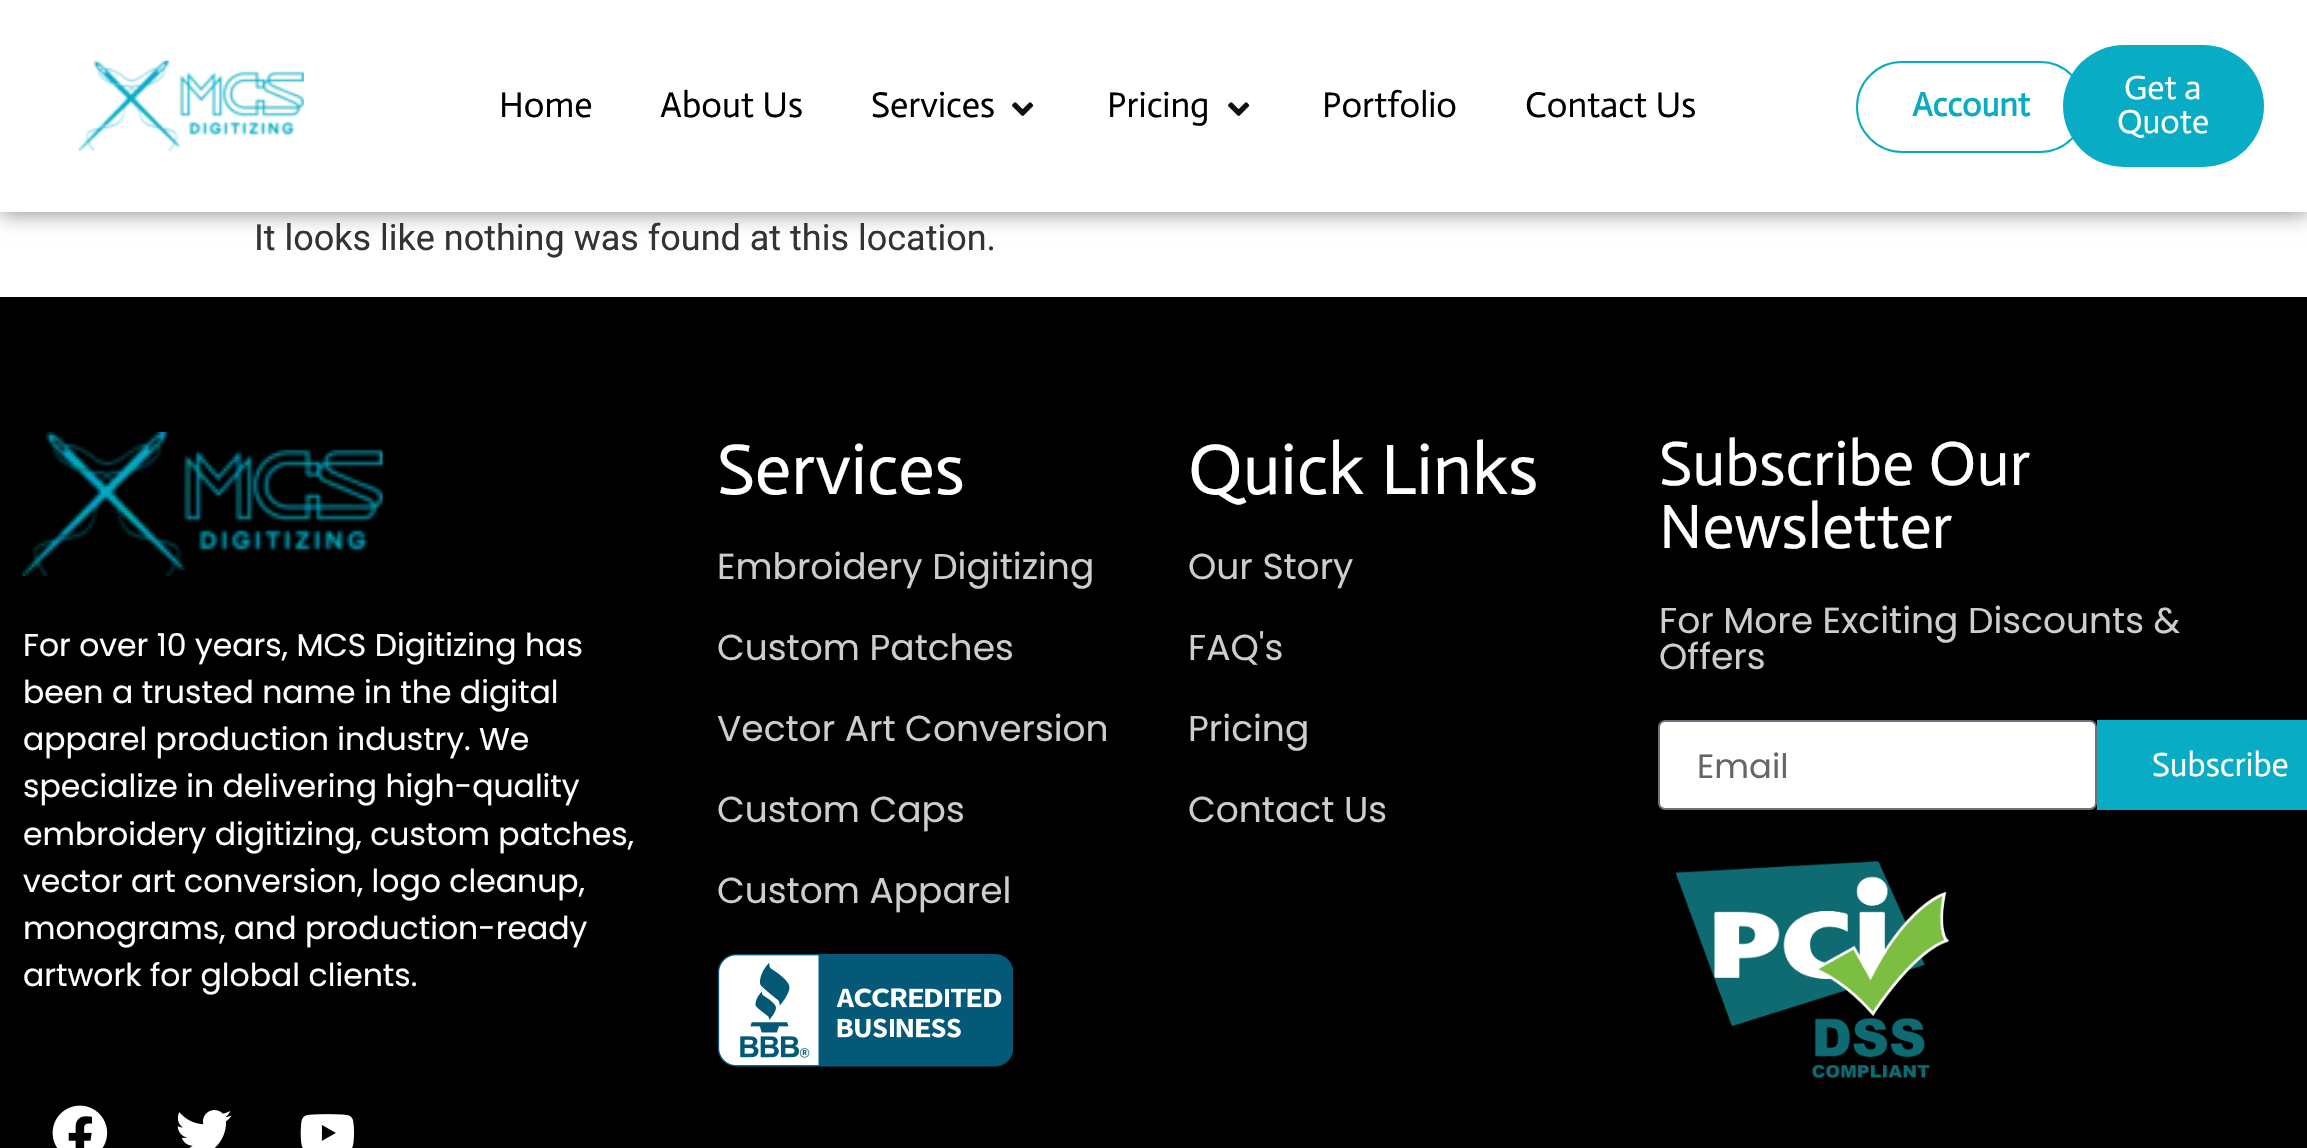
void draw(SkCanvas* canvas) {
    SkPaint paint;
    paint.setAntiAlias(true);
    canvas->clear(0xFFFFFFFF);
    paint.setColor(0x80000000);
    paint.setMaskFilter(SkMaskFilter::MakeBlur(kNormal_SkBlurStyle, 11));
    canvas->drawRect(SkRect::MakeXYWH(0, 0, 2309, 212), paint);
    paint.setMaskFilter(nullptr);
    paint.setColor(0xFFFFFFFF);
    canvas->drawRect(SkRect::MakeXYWH(0, 0, 2307, 212), paint);
    canvas->drawImageRect(SkImages::DeferredFromEncodedData(SkData::MakeFromFileName("img1.png")), SkRect::MakeXYWH(78, 60, 226, 91), SkSamplingOptions());
    SkFont font1(fontMgr->matchFamilyStyle("Actor", SkFontStyle::Normal()), 36);
    font1.setSubpixel(true);
    paint.setColor(0xFF000000);
    canvas->drawString("Home", 499, 117, font1, paint);
    canvas->drawString("About Us", 660, 117, font1, paint);
    canvas->drawString("Services", 871, 117, font1, paint);
    canvas->drawImageRect(SkImages::DeferredFromEncodedData(SkData::MakeFromFileName("img2.png")), SkRect::MakeXYWH(1012, 102, 22, 14), SkSamplingOptions());
    canvas->drawString("Pricing", 1107, 117, font1, paint);
    canvas->drawImageRect(SkImages::DeferredFromEncodedData(SkData::MakeFromFileName("img2.png")), SkRect::MakeXYWH(1228, 102, 22, 14), SkSamplingOptions());
    canvas->drawString("Portfolio", 1322, 117, font1, paint);
    canvas->drawString("Contact Us", 1525, 117, font1, paint);
    paint.setStyle(SkPaint::kStroke_Style);
    paint.setStrokeWidth(2);
    paint.setColor(0xFF08ACC4);
    canvas->drawRoundRect(SkRect::MakeXYWH(1857, 62, 228, 90), 45, 45, paint);
    SkFont font2(fontMgr->matchFamilyStyle("Actor", SkFontStyle::Bold()), 33.75f);
    font2.setSubpixel(true);
    paint.setStyle(SkPaint::kFill_Style);
    canvas->drawString("Account", 1912, 116, font2, paint);
    canvas->drawRoundRect(SkRect::MakeXYWH(2063, 45, 201, 122), 61, 61, paint);
    SkFont font3(fontMgr->matchFamilyStyle("Actor", SkFontStyle::Normal()), 33.75f);
    font3.setSubpixel(true);
    paint.setColor(0xFFFFFFFF);
    canvas->drawString("Get a", 2124, 99, font3, paint);
    canvas->drawString("Quote", 2117, 133, font3, paint);
    SkFont font4(fontMgr->matchFamilyStyle("Roboto", SkFontStyle::Normal()), 36);
    font4.setSubpixel(true);
    paint.setColor(0xFF333333);
    canvas->drawString("It looks like nothing was found at this location.", 254, 250, font4, paint);
    paint.setColor(0xFF000000);
    canvas->drawRect(SkRect::MakeXYWH(0, 297, 2307, 851), paint);
    canvas->drawImageRect(SkImages::DeferredFromEncodedData(SkData::MakeFromFileName("img3.png")), SkRect::MakeXYWH(22, 432, 361, 144), SkSamplingOptions());
    SkFont font5(fontMgr->matchFamilyStyle("Poppins", SkFontStyle::Normal()), 31.5f);
    font5.setSubpixel(true);
    paint.setColor(0xFFFFFFFF);
    canvas->drawString("For over 10 years, MCS Digitizing has", 23, 656, font5, paint);
    canvas->drawString("been a trusted name in the digital", 23, 703, font5, paint);
    canvas->drawString("apparel production industry. We", 23, 750, font5, paint);
    canvas->drawString("specialize in delivering high-quality", 23, 797, font5, paint);
    canvas->drawString("embroidery digitizing, custom patches,", 23, 845, font5, paint);
    canvas->drawString("vector art conversion, logo cleanup,", 23, 892, font5, paint);
    canvas->drawString("monograms, and production-ready", 23, 939, font5, paint);
    canvas->drawString("artwork for global clients.", 23, 986, font5, paint);
    canvas->drawImageRect(SkImages::DeferredFromEncodedData(SkData::MakeFromFileName("img4.png")), SkRect::MakeXYWH(52, 1105, 56, 43), SkSamplingOptions());
    canvas->drawImageRect(SkImages::DeferredFromEncodedData(SkData::MakeFromFileName("img5.png")), SkRect::MakeXYWH(177, 1110, 55, 38), SkSamplingOptions());
    canvas->drawImageRect(SkImages::DeferredFromEncodedData(SkData::MakeFromFileName("img6.png")), SkRect::MakeXYWH(300, 1114, 55, 34), SkSamplingOptions());
    SkFont font6(fontMgr->matchFamilyStyle("Actor", SkFontStyle::Normal()), 72);
    font6.setSubpixel(true);
    canvas->drawString("Services", 717, 494, font6, paint);
    SkFont font7(fontMgr->matchFamilyStyle("Poppins", SkFontStyle::Normal()), 36);
    font7.setSubpixel(true);
    paint.setColor(0xFFCDCDCD);
    canvas->drawString("Embroidery Digitizing", 717, 579, font7, paint);
    canvas->drawString("Custom Patches", 717, 660, font7, paint);
    canvas->drawString("Vector Art Conversion", 717, 741, font7, paint);
    canvas->drawString("Custom Caps", 717, 822, font7, paint);
    canvas->drawString("Custom Apparel", 717, 903, font7, paint);
    canvas->drawImageRect(SkImages::DeferredFromEncodedData(SkData::MakeFromFileName("img7.png")), SkRect::MakeXYWH(718, 954, 295, 113), SkSamplingOptions());
    paint.setColor(0xFFFFFFFF);
    canvas->drawString("Quick Links", 1188, 494, font6, paint);
    paint.setColor(0xFFCDCDCD);
    canvas->drawString("Our Story", 1188, 579, font7, paint);
    canvas->drawString("FAQ's", 1188, 660, font7, paint);
    canvas->drawString("Pricing", 1188, 741, font7, paint);
    canvas->drawString("Contact Us", 1188, 822, font7, paint);
    SkFont font8(fontMgr->matchFamilyStyle("Actor", SkFontStyle::Normal()), 63);
    font8.setSubpixel(true);
    paint.setColor(0xFFFFFFFF);
    canvas->drawString("Subscribe Our", 1659, 485, font8, paint);
    canvas->drawString("Newsletter", 1659, 548, font8, paint);
    paint.setColor(0xFFCDCDCD);
    canvas->drawString("For More Exciting Discounts &", 1659, 633, font7, paint);
    canvas->drawString("Offers", 1659, 669, font7, paint);
    paint.setColor(0xFFFFFFFF);
    canvas->drawRoundRect(SkRect::MakeXYWH(1659, 721, 437, 88), 6, 6, paint);
    paint.setStyle(SkPaint::kStroke_Style);
    paint.setColor(0xFF69727D);
    canvas->drawRoundRect(SkRect::MakeXYWH(1659, 721, 437, 88), 6, 6, paint);
    SkFont font9(fontMgr->matchFamilyStyle("Poppins", SkFontStyle::Normal()), 33.75f);
    font9.setSubpixel(true);
    paint.setStyle(SkPaint::kFill_Style);
    paint.setColor(0xFF666666);
    canvas->drawString("Email", 1697, 778, font9, paint);
    paint.setColor(0xFF08ACC4);
    canvas->drawRect(SkRect::MakeXYWH(2097, 720, 210, 90), paint);
    paint.setColor(0xFFFFFFFF);
    canvas->drawString("Subscribe", 2152, 776, font3, paint);
    canvas->drawImageRect(SkImages::DeferredFromEncodedData(SkData::MakeFromFileName("img8.png")), SkRect::MakeXYWH(1675, 861, 275, 217), SkSamplingOptions());
}
